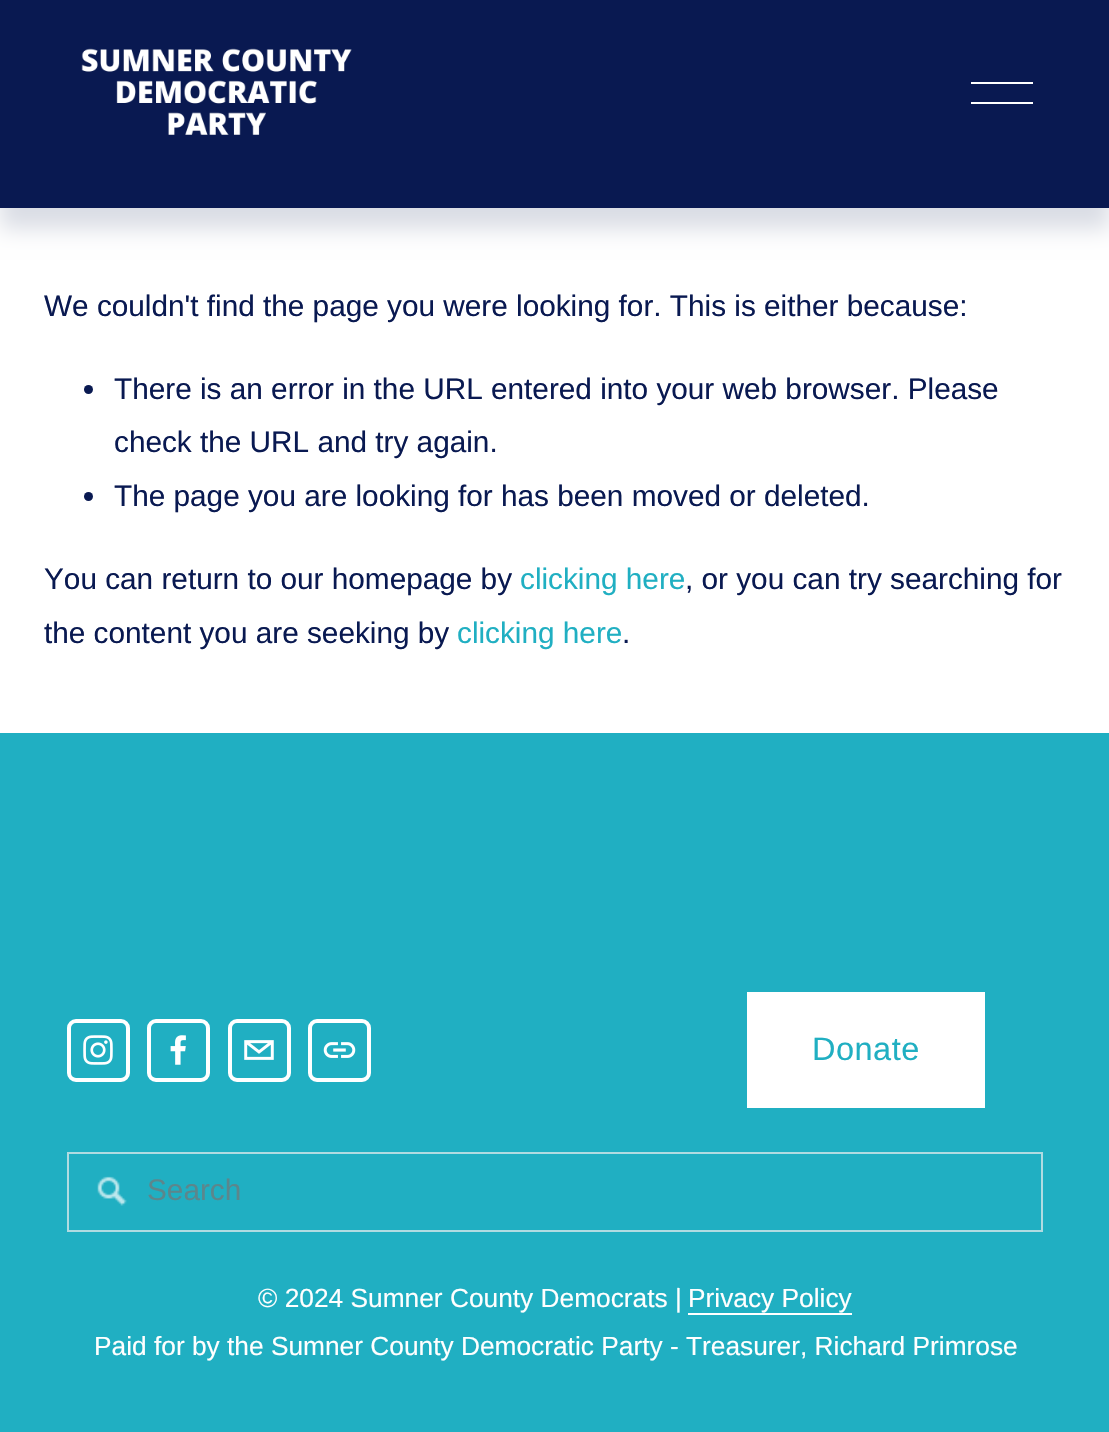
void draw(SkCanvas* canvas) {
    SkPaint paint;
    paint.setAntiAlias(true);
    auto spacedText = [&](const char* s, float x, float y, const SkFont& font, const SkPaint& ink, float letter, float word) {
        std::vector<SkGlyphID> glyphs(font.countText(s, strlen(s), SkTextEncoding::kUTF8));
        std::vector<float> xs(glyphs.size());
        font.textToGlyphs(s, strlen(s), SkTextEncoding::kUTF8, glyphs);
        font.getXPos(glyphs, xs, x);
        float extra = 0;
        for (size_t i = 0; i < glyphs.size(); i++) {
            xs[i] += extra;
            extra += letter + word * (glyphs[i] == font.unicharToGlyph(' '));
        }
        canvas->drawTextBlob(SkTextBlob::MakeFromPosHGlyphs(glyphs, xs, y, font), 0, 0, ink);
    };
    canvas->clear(0xFFFFFFFF);
    paint.setColor(0xFFDADDE5);
    paint.setMaskFilter(SkMaskFilter::MakeBlur(kNormal_SkBlurStyle, 10.5f));
    canvas->drawRect(SkRect::MakeXYWH(0, -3, 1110, 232), paint);
    paint.setMaskFilter(nullptr);
    paint.setColor(0xFF091951);
    canvas->drawRect(SkRect::MakeXYWH(0, 0, 1109, 208), paint);
    canvas->drawImageRect(SkImages::DeferredFromEncodedData(SkData::MakeFromFileName("img1.png")), SkRect::MakeXYWH(81, 48, 271, 87), SkSamplingOptions());
    paint.setColor(0xFFFFFFFF);
    canvas->drawRect(SkRect::MakeXYWH(971, 82, 62, 2), paint);
    canvas->drawRect(SkRect::MakeXYWH(971, 102, 62, 2), paint);
    SkFont font1(fontMgr->matchFamilyStyle("Liberation Sans", SkFontStyle::Normal()), 29.75f);
    font1.setSubpixel(true);
    paint.setColor(0xFF091951);
    canvas->drawString("We couldn't find the page you were looking for. This is either because:", 44, 316, font1, paint);
    canvas->drawCircle(88.5f, 389.5f, 4.5f, paint);
    canvas->drawString("There is an error in the URL entered into your web browser. Please", 114, 399, font1, paint);
    canvas->drawString("check the URL and try again.", 114, 452, font1, paint);
    canvas->drawCircle(88.5f, 496.5f, 4.5f, paint);
    canvas->drawString("The page you are looking for has been moved or deleted.", 114, 506, font1, paint);
    canvas->drawString("You can return to our homepage by", 44, 589, font1, paint);
    paint.setColor(0xFF20AFC2);
    canvas->drawString("clicking here", 520, 589, font1, paint);
    paint.setColor(0xFF091951);
    canvas->drawString(", or you can try searching for", 685, 589, font1, paint);
    canvas->drawString("the content you are seeking by", 44, 643, font1, paint);
    paint.setColor(0xFF20AFC2);
    canvas->drawString("clicking here", 457, 643, font1, paint);
    paint.setColor(0xFF091951);
    canvas->drawString(".", 622, 643, font1, paint);
    paint.setColor(0xFF20AFC2);
    canvas->drawRect(SkRect::MakeXYWH(0, 733, 1109, 699), paint);
    paint.setStyle(SkPaint::kStroke_Style);
    paint.setStrokeWidth(4);
    paint.setColor(0xFFFFFFFF);
    canvas->drawRoundRect(SkRect::MakeXYWH(69, 1021, 59, 59), 7, 7, paint);
    canvas->drawImageRect(SkImages::DeferredFromEncodedData(SkData::MakeFromFileName("img2.png")), SkRect::MakeXYWH(83, 1035, 30, 30), SkSamplingOptions());
    canvas->drawRoundRect(SkRect::MakeXYWH(149, 1021, 59, 59), 7, 7, paint);
    canvas->drawImageRect(SkImages::DeferredFromEncodedData(SkData::MakeFromFileName("img3.png")), SkRect::MakeXYWH(170, 1035, 16, 30), SkSamplingOptions());
    canvas->drawRoundRect(SkRect::MakeXYWH(230, 1021, 59, 59), 7, 7, paint);
    canvas->drawImageRect(SkImages::DeferredFromEncodedData(SkData::MakeFromFileName("img4.png")), SkRect::MakeXYWH(244, 1040, 30, 20), SkSamplingOptions());
    canvas->drawRoundRect(SkRect::MakeXYWH(310, 1021, 59, 59), 7, 7, paint);
    canvas->drawImageRect(SkImages::DeferredFromEncodedData(SkData::MakeFromFileName("img5.png")), SkRect::MakeXYWH(323, 1042, 33, 16), SkSamplingOptions());
    paint.setStyle(SkPaint::kFill_Style);
    canvas->drawRect(SkRect::MakeXYWH(747, 992, 238, 116), paint);
    SkFont font2(fontMgr->matchFamilyStyle("Liberation Sans", SkFontStyle::Normal()), 32.5f);
    font2.setSubpixel(true);
    paint.setColor(0xFF20AFC2);
    spacedText("Donate", 812, 1060, font2, paint, 0.5f, 0);
    canvas->drawImageRect(SkImages::DeferredFromEncodedData(SkData::MakeFromFileName("img6.png")), SkRect::MakeXYWH(97, 1176, 30, 30), SkSamplingOptions());
    paint.setStyle(SkPaint::kStroke_Style);
    paint.setStrokeWidth(2);
    paint.setColor(0xFFB0DBE1);
    canvas->drawRect(SkRect::MakeXYWH(68, 1153, 974, 78), paint);
    paint.setStyle(SkPaint::kFill_Style);
    paint.setColor(0xFF5C868C);
    canvas->drawString("Search", 147, 1200, font1, paint);
    SkFont font3(fontMgr->matchFamilyStyle("Liberation Sans", SkFontStyle::Normal()), 26.3f);
    font3.setSubpixel(true);
    paint.setColor(0xFFFFFFFF);
    canvas->drawString("© 2024 Sumner County Democrats |", 258, 1307, font3, paint);
    canvas->drawString("Privacy Policy", 688, 1307, font3, paint);
    canvas->drawRect(SkRect::MakeXYWH(688, 1313, 164, 2), paint);
    canvas->drawString("Paid for by the Sumner County Democratic Party - Treasurer, Richard Primrose", 94, 1355, font3, paint);
}
